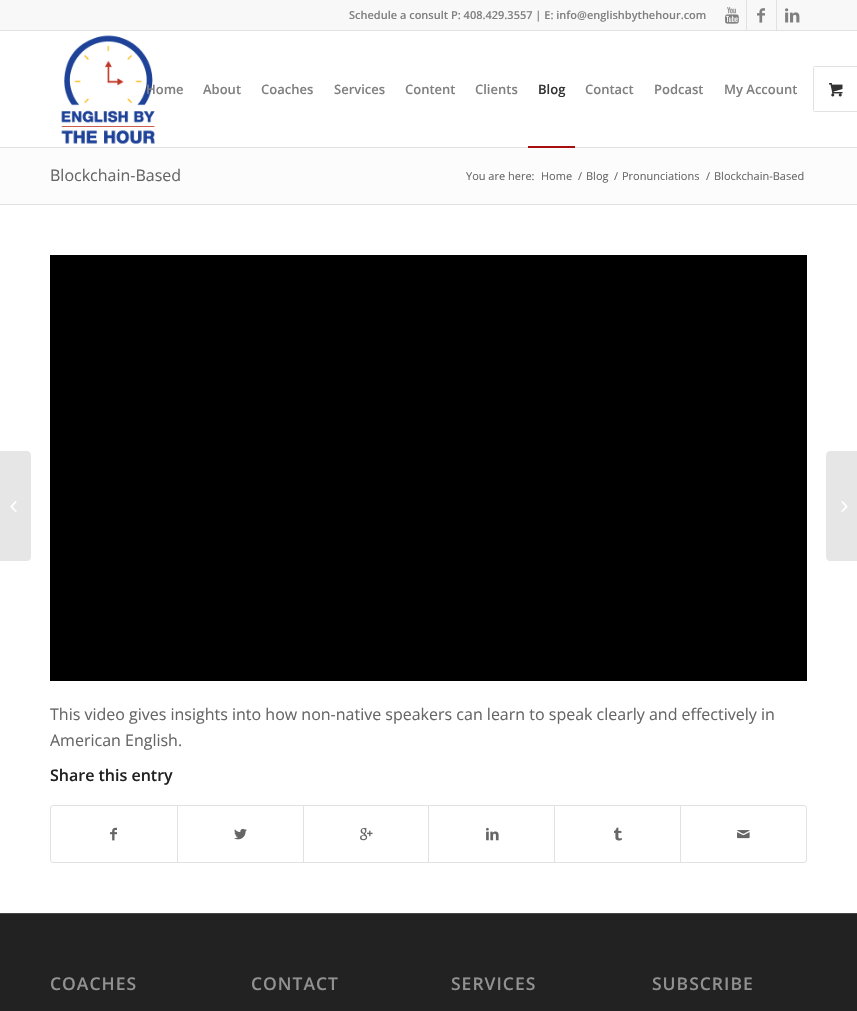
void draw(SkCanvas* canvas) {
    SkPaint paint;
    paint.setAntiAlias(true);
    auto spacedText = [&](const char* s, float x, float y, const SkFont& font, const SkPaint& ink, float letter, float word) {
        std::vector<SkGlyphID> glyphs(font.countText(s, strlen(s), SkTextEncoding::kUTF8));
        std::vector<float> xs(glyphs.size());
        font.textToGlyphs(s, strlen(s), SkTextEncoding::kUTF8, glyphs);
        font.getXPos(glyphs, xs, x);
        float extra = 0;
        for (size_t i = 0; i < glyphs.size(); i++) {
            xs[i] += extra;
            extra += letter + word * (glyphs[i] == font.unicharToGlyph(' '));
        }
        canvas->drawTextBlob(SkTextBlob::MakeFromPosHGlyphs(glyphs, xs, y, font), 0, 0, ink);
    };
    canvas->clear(0xFFFFFFFF);
    paint.setColor(0xFFF8F8F8);
    canvas->drawRect(SkRect::MakeXYWH(0, 0, 857, 30), paint);
    paint.setColor(0xFFE1E1E1);
    canvas->drawRect(SkRect::MakeXYWH(0, 30, 857, 1), paint);
    SkFont font1(fontMgr->matchFamilyStyle("Open Sans", SkFontStyle(600, SkFontStyle::kNormal_Width, SkFontStyle::kUpright_Slant)), 11);
    font1.setSubpixel(true);
    paint.setColor(0xFF808080);
    canvas->drawString("Schedule a consult P: 408.429.3557 | E: info@englishbythehour.com", 349, 19, font1, paint);
    paint.setColor(0xFFE1E1E1);
    canvas->drawRect(SkRect::MakeXYWH(746, 0, 1, 30), paint);
    canvas->drawImageRect(SkImages::DeferredFromEncodedData(SkData::MakeFromFileName("img1.png")), SkRect::MakeXYWH(725, 7, 14, 17), SkSamplingOptions());
    canvas->drawRect(SkRect::MakeXYWH(776, 0, 1, 30), paint);
    canvas->drawImageRect(SkImages::DeferredFromEncodedData(SkData::MakeFromFileName("img2.png")), SkRect::MakeXYWH(757, 8, 8, 15), SkSamplingOptions());
    canvas->drawImageRect(SkImages::DeferredFromEncodedData(SkData::MakeFromFileName("img3.png")), SkRect::MakeXYWH(785, 8, 15, 15), SkSamplingOptions());
    canvas->drawRect(SkRect::MakeXYWH(0, 147, 857, 1), paint);
    canvas->drawImageRect(SkImages::DeferredFromEncodedData(SkData::MakeFromFileName("img4.png")), SkRect::MakeXYWH(61, 35, 94, 109), SkSamplingOptions());
    SkFont font2(fontMgr->matchFamilyStyle("Open Sans", SkFontStyle(600, SkFontStyle::kNormal_Width, SkFontStyle::kUpright_Slant)), 13);
    font2.setSubpixel(true);
    paint.setColor(0xFF808080);
    canvas->drawString("Home", 146, 94, font2, paint);
    canvas->drawString("About", 203, 94, font2, paint);
    canvas->drawString("Coaches", 261, 94, font2, paint);
    canvas->drawString("Services", 334, 94, font2, paint);
    canvas->drawString("Content", 405, 94, font2, paint);
    canvas->drawString("Clients", 475, 94, font2, paint);
    paint.setColor(0xFF333333);
    canvas->drawString("Blog", 538, 94, font2, paint);
    paint.setColor(0xFFA81010);
    canvas->drawRect(SkRect::MakeXYWH(528, 146, 47, 2), paint);
    paint.setColor(0xFF808080);
    canvas->drawString("Contact", 585, 94, font2, paint);
    canvas->drawString("Podcast", 654, 94, font2, paint);
    canvas->drawString("My Account", 724, 94, font2, paint);
    paint.setStyle(SkPaint::kStroke_Style);
    paint.setStrokeWidth(1);
    paint.setColor(0xFFE1E1E1);
    canvas->drawRoundRect(SkRect::MakeXYWH(813.5f, 66.5f, 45, 45), 1.5f, 1.5f, paint);
    paint.setStyle(SkPaint::kFill_Style);
    paint.setColor(0xFFFFFFFF);
    canvas->drawRect(SkRect::MakeXYWH(814, 67, 1, 44), paint);
    canvas->drawImageRect(SkImages::DeferredFromEncodedData(SkData::MakeFromFileName("img5.png")), SkRect::MakeXYWH(829, 83, 14, 14), SkSamplingOptions());
    paint.setColor(0xFFE6E6E6);
    canvas->drawPath(SkPathBuilder().moveTo(0, 451).lineTo(27, 451).cubicTo(29, 451, 31, 453, 31, 455).lineTo(31, 557).cubicTo(31, 559, 29, 561, 27, 561).lineTo(0, 561).close().detach(), paint);
    canvas->drawImageRect(SkImages::DeferredFromEncodedData(SkData::MakeFromFileName("img6.png")), SkRect::MakeXYWH(10, 501, 7, 11), SkSamplingOptions());
    paint.setColor(0xFFFCFCFC);
    canvas->drawRect(SkRect::MakeXYWH(0, 148, 857, 56), paint);
    SkFont font3(fontMgr->matchFamilyStyle("Open Sans", SkFontStyle::Normal()), 16);
    font3.setSubpixel(true);
    paint.setColor(0xFF666666);
    canvas->drawString("Blockchain-Based", 50, 181, font3, paint);
    SkFont font4(fontMgr->matchFamilyStyle("Open Sans", SkFontStyle::Normal()), 11);
    font4.setSubpixel(true);
    canvas->drawString("You are here:", 466, 180, font4, paint);
    canvas->drawString("Home", 541, 180, font4, paint);
    canvas->drawString("/", 578, 180, font4, paint);
    canvas->drawString("Blog", 586, 180, font4, paint);
    canvas->drawString("/", 614, 180, font4, paint);
    canvas->drawString("Pronunciations", 622, 180, font4, paint);
    canvas->drawString("/", 706, 180, font4, paint);
    canvas->drawString("Blockchain-Based", 714, 180, font4, paint);
    paint.setColor(0xFFE1E1E1);
    canvas->drawRect(SkRect::MakeXYWH(0, 204, 857, 1), paint);
    paint.setColor(0xFF000000);
    canvas->drawRect(SkRect::MakeXYWH(50, 255, 757, 426), paint);
    paint.setColor(0xFF666666);
    canvas->drawString("This video gives insights into how non-native speakers can learn to speak clearly and effectively in", 50, 720, font3, paint);
    canvas->drawString("American English.", 50, 746, font3, paint);
    SkFont font5(fontMgr->matchFamilyStyle("Open Sans", SkFontStyle(600, SkFontStyle::kNormal_Width, SkFontStyle::kUpright_Slant)), 16);
    font5.setSubpixel(true);
    paint.setColor(0xFF222222);
    canvas->drawString("Share this entry", 50, 781, font5, paint);
    paint.setStyle(SkPaint::kStroke_Style);
    paint.setColor(0xFFE1E1E1);
    canvas->drawRoundRect(SkRect::MakeXYWH(50.5f, 805.5f, 756, 57), 2.5f, 2.5f, paint);
    canvas->drawImageRect(SkImages::DeferredFromEncodedData(SkData::MakeFromFileName("img7.png")), SkRect::MakeXYWH(110, 827, 7, 14), SkSamplingOptions());
    paint.setStyle(SkPaint::kFill_Style);
    canvas->drawRect(SkRect::MakeXYWH(177, 806, 1, 56), paint);
    canvas->drawImageRect(SkImages::DeferredFromEncodedData(SkData::MakeFromFileName("img8.png")), SkRect::MakeXYWH(234, 828, 13, 12), SkSamplingOptions());
    canvas->drawRect(SkRect::MakeXYWH(303, 806, 1, 56), paint);
    canvas->drawImageRect(SkImages::DeferredFromEncodedData(SkData::MakeFromFileName("img9.png")), SkRect::MakeXYWH(360, 827, 13, 14), SkSamplingOptions());
    canvas->drawRect(SkRect::MakeXYWH(428, 806, 1, 56), paint);
    canvas->drawImageRect(SkImages::DeferredFromEncodedData(SkData::MakeFromFileName("img10.png")), SkRect::MakeXYWH(486, 827, 13, 14), SkSamplingOptions());
    canvas->drawRect(SkRect::MakeXYWH(554, 806, 1, 56), paint);
    canvas->drawImageRect(SkImages::DeferredFromEncodedData(SkData::MakeFromFileName("img11.png")), SkRect::MakeXYWH(614, 827, 8, 14), SkSamplingOptions());
    canvas->drawRect(SkRect::MakeXYWH(680, 806, 1, 56), paint);
    canvas->drawImageRect(SkImages::DeferredFromEncodedData(SkData::MakeFromFileName("img12.png")), SkRect::MakeXYWH(737, 830, 13, 9), SkSamplingOptions());
    paint.setColor(0xFF222222);
    canvas->drawRect(SkRect::MakeXYWH(0, 914, 857, 97), paint);
    paint.setColor(0xFF444444);
    canvas->drawRect(SkRect::MakeXYWH(0, 913, 857, 1), paint);
    SkFont font6(fontMgr->matchFamilyStyle("Open Sans", SkFontStyle(600, SkFontStyle::kNormal_Width, SkFontStyle::kUpright_Slant)), 17.5f);
    font6.setSubpixel(true);
    paint.setColor(0xFF919191);
    spacedText("COACHES", 50, 990, font6, paint, 1, 0);
    spacedText("CONTACT", 251, 990, font6, paint, 1, 0);
    spacedText("SERVICES", 451, 990, font6, paint, 1, 0);
    spacedText("SUBSCRIBE", 652, 990, font6, paint, 1, 0);
    paint.setColor(0xFFE6E6E6);
    canvas->drawPath(SkPathBuilder().moveTo(830, 451).lineTo(857, 451).lineTo(857, 561).lineTo(830, 561).cubicTo(828, 561, 826, 559, 826, 557).lineTo(826, 455).cubicTo(826, 453, 828, 451, 830, 451).close().detach(), paint);
    canvas->drawImageRect(SkImages::DeferredFromEncodedData(SkData::MakeFromFileName("img13.png")), SkRect::MakeXYWH(841, 501, 7, 11), SkSamplingOptions());
}
